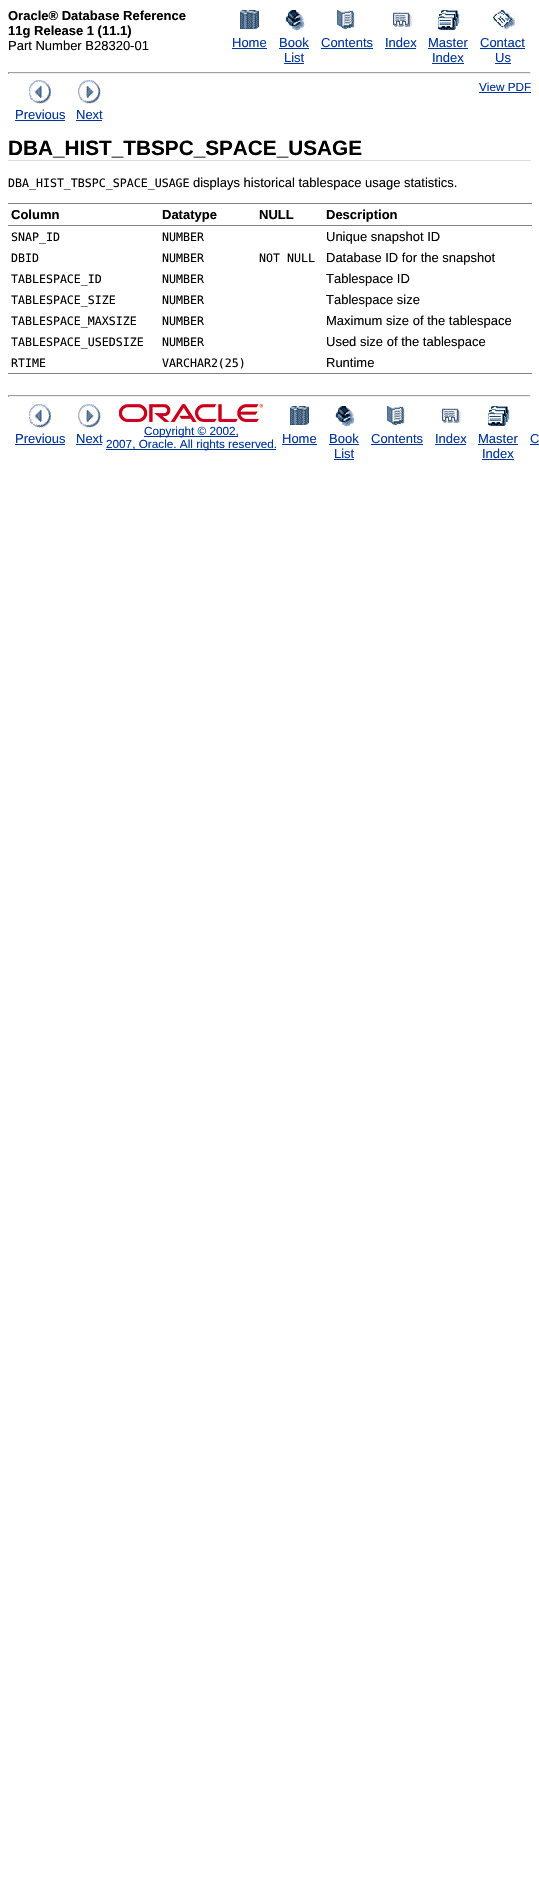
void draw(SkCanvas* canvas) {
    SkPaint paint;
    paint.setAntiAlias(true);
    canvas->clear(0xFFFFFFFF);
    SkFont font1(fontMgr->matchFamilyStyle("Liberation Sans", SkFontStyle::Bold()), 13);
    font1.setSubpixel(true);
    paint.setColor(0xFF000000);
    canvas->drawString("Oracle® Database Reference", 8, 20, font1, paint);
    canvas->drawString("11g Release 1 (11.1)", 8, 35, font1, paint);
    SkFont font2(fontMgr->matchFamilyStyle("Liberation Sans", SkFontStyle::Normal()), 13);
    font2.setSubpixel(true);
    canvas->drawString("Part Number B28320-01", 8, 50, font2, paint);
    canvas->drawImageRect(SkImages::DeferredFromEncodedData(SkData::MakeFromFileName("img1.png")), SkRect::MakeXYWH(240, 10, 19, 19), SkSamplingOptions());
    paint.setColor(0xFF003399);
    canvas->drawString("Home", 232, 47, font2, paint);
    canvas->drawRect(SkRect::MakeXYWH(232, 48, 35, 1), paint);
    canvas->drawImageRect(SkImages::DeferredFromEncodedData(SkData::MakeFromFileName("img2.png")), SkRect::MakeXYWH(285, 10, 20, 21), SkSamplingOptions());
    canvas->drawString("Book", 279, 47, font2, paint);
    canvas->drawRect(SkRect::MakeXYWH(279, 48, 30, 1), paint);
    canvas->drawString("List", 284, 62, font2, paint);
    canvas->drawRect(SkRect::MakeXYWH(284, 63, 20, 1), paint);
    canvas->drawImageRect(SkImages::DeferredFromEncodedData(SkData::MakeFromFileName("img3.png")), SkRect::MakeXYWH(337, 10, 18, 19), SkSamplingOptions());
    canvas->drawString("Contents", 321, 47, font2, paint);
    canvas->drawRect(SkRect::MakeXYWH(321, 48, 52, 1), paint);
    canvas->drawImageRect(SkImages::DeferredFromEncodedData(SkData::MakeFromFileName("img4.png")), SkRect::MakeXYWH(393, 12, 19, 15), SkSamplingOptions());
    canvas->drawString("Index", 385, 47, font2, paint);
    canvas->drawRect(SkRect::MakeXYWH(385, 48, 31, 1), paint);
    canvas->drawImageRect(SkImages::DeferredFromEncodedData(SkData::MakeFromFileName("img5.png")), SkRect::MakeXYWH(438, 10, 22, 20), SkSamplingOptions());
    canvas->drawString("Master", 428, 47, font2, paint);
    canvas->drawRect(SkRect::MakeXYWH(428, 48, 40, 1), paint);
    canvas->drawString("Index", 432, 62, font2, paint);
    canvas->drawRect(SkRect::MakeXYWH(432, 63, 32, 1), paint);
    canvas->drawImageRect(SkImages::DeferredFromEncodedData(SkData::MakeFromFileName("img6.png")), SkRect::MakeXYWH(493, 10, 22, 22), SkSamplingOptions());
    canvas->drawString("Contact", 480, 47, font2, paint);
    canvas->drawRect(SkRect::MakeXYWH(480, 48, 45, 1), paint);
    canvas->drawString("Us", 495, 62, font2, paint);
    canvas->drawRect(SkRect::MakeXYWH(495, 63, 16, 1), paint);
    paint.setColor(0xFF9F9F9F);
    canvas->drawRect(SkRect::MakeXYWH(8, 72, 523, 1), paint);
    paint.setColor(0xFFEEEEEE);
    canvas->drawRect(SkRect::MakeXYWH(530, 72, 1, 2), paint);
    canvas->drawRect(SkRect::MakeXYWH(8, 73, 523, 1), paint);
    paint.setColor(0xFF9F9F9F);
    canvas->drawRect(SkRect::MakeXYWH(8, 72, 1, 2), paint);
    SkFont font3(fontMgr->matchFamilyStyle("Liberation Sans", SkFontStyle::Normal()), 11.75f);
    font3.setSubpixel(true);
    paint.setColor(0xFF003399);
    canvas->drawString("View PDF", 479, 91, font3, paint);
    canvas->drawRect(SkRect::MakeXYWH(479, 92, 52, 1), paint);
    canvas->drawImageRect(SkImages::DeferredFromEncodedData(SkData::MakeFromFileName("img7.png")), SkRect::MakeXYWH(29, 80, 22, 24), SkSamplingOptions());
    canvas->drawString("Previous", 15, 119, font2, paint);
    canvas->drawRect(SkRect::MakeXYWH(15, 120, 50, 1), paint);
    canvas->drawImageRect(SkImages::DeferredFromEncodedData(SkData::MakeFromFileName("img8.png")), SkRect::MakeXYWH(78, 80, 23, 24), SkSamplingOptions());
    canvas->drawString("Next", 76, 119, font2, paint);
    canvas->drawRect(SkRect::MakeXYWH(76, 120, 26, 1), paint);
    paint.setColor(0xFFDDDDDD);
    canvas->drawRect(SkRect::MakeXYWH(8, 160, 523, 1), paint);
    SkFont font4(fontMgr->matchFamilyStyle("Liberation Sans", SkFontStyle::Bold()), 20.75f);
    font4.setSubpixel(true);
    paint.setColor(0xFF000000);
    canvas->drawString("DBA_HIST_TBSPC_SPACE_USAGE", 8, 155, font4, paint);
    SkFont font5(fontMgr->matchFamilyStyle("DejaVu Sans Mono", SkFontStyle::Normal()), 11.6f);
    font5.setSubpixel(true);
    canvas->drawString("DBA_HIST_TBSPC_SPACE_USAGE", 8, 187, font5, paint);
    canvas->drawString("displays historical tablespace usage statistics.", 193, 187, font2, paint);
    paint.setColor(0xFF808080);
    canvas->drawRect(SkRect::MakeXYWH(8, 203, 524, 1), paint);
    paint.setColor(0xFF000000);
    canvas->drawString("Column", 11, 219, font1, paint);
    canvas->drawString("Datatype", 162, 219, font1, paint);
    canvas->drawString("NULL", 259, 219, font1, paint);
    canvas->drawString("Description", 326, 219, font1, paint);
    paint.setColor(0xFF808080);
    canvas->drawRect(SkRect::MakeXYWH(8, 225, 524, 1), paint);
    canvas->drawRect(SkRect::MakeXYWH(8, 373, 524, 1), paint);
    paint.setColor(0xFF000000);
    canvas->drawString("SNAP_ID", 11, 241, font5, paint);
    canvas->drawString("NUMBER", 162, 241, font5, paint);
    canvas->drawString("Unique snapshot ID", 326, 241, font2, paint);
    canvas->drawString("DBID", 11, 262, font5, paint);
    canvas->drawString("NUMBER", 162, 262, font5, paint);
    canvas->drawString("NOT NULL", 259, 262, font5, paint);
    canvas->drawString("Database ID for the snapshot", 326, 262, font2, paint);
    canvas->drawString("TABLESPACE_ID", 11, 283, font5, paint);
    canvas->drawString("NUMBER", 162, 283, font5, paint);
    canvas->drawString("Tablespace ID", 326, 283, font2, paint);
    canvas->drawString("TABLESPACE_SIZE", 11, 304, font5, paint);
    canvas->drawString("NUMBER", 162, 304, font5, paint);
    canvas->drawString("Tablespace size", 326, 304, font2, paint);
    canvas->drawString("TABLESPACE_MAXSIZE", 11, 325, font5, paint);
    canvas->drawString("NUMBER", 162, 325, font5, paint);
    canvas->drawString("Maximum size of the tablespace", 326, 325, font2, paint);
    canvas->drawString("TABLESPACE_USEDSIZE", 11, 346, font5, paint);
    canvas->drawString("NUMBER", 162, 346, font5, paint);
    canvas->drawString("Used size of the tablespace", 326, 346, font2, paint);
    canvas->drawString("RTIME", 11, 367, font5, paint);
    canvas->drawString("VARCHAR2(25)", 162, 367, font5, paint);
    canvas->drawString("Runtime", 326, 367, font2, paint);
    paint.setColor(0xFF9F9F9F);
    canvas->drawRect(SkRect::MakeXYWH(8, 395, 523, 1), paint);
    paint.setColor(0xFFEEEEEE);
    canvas->drawRect(SkRect::MakeXYWH(530, 395, 1, 2), paint);
    canvas->drawRect(SkRect::MakeXYWH(8, 396, 523, 1), paint);
    paint.setColor(0xFF9F9F9F);
    canvas->drawRect(SkRect::MakeXYWH(8, 395, 1, 2), paint);
    canvas->drawImageRect(SkImages::DeferredFromEncodedData(SkData::MakeFromFileName("img7.png")), SkRect::MakeXYWH(29, 404, 22, 24), SkSamplingOptions());
    paint.setColor(0xFF003399);
    canvas->drawString("Previous", 15, 443, font2, paint);
    canvas->drawRect(SkRect::MakeXYWH(15, 444, 50, 1), paint);
    canvas->drawImageRect(SkImages::DeferredFromEncodedData(SkData::MakeFromFileName("img8.png")), SkRect::MakeXYWH(78, 404, 23, 24), SkSamplingOptions());
    canvas->drawString("Next", 76, 443, font2, paint);
    canvas->drawRect(SkRect::MakeXYWH(76, 444, 26, 1), paint);
    canvas->drawImageRect(SkImages::DeferredFromEncodedData(SkData::MakeFromFileName("img9.png")), SkRect::MakeXYWH(119, 404, 144, 18), SkSamplingOptions());
    canvas->drawRect(SkRect::MakeXYWH(144, 436, 94, 1), paint);
    canvas->drawString("Copyright © 2002,", 144, 435, font3, paint);
    canvas->drawRect(SkRect::MakeXYWH(106, 449, 170, 1), paint);
    canvas->drawString("2007, Oracle. All rights reserved.", 106, 448, font3, paint);
    canvas->drawImageRect(SkImages::DeferredFromEncodedData(SkData::MakeFromFileName("img1.png")), SkRect::MakeXYWH(290, 406, 19, 19), SkSamplingOptions());
    canvas->drawString("Home", 282, 443, font2, paint);
    canvas->drawRect(SkRect::MakeXYWH(282, 444, 35, 1), paint);
    canvas->drawImageRect(SkImages::DeferredFromEncodedData(SkData::MakeFromFileName("img2.png")), SkRect::MakeXYWH(335, 406, 20, 21), SkSamplingOptions());
    canvas->drawString("Book", 329, 443, font2, paint);
    canvas->drawRect(SkRect::MakeXYWH(329, 444, 30, 1), paint);
    canvas->drawString("List", 334, 458, font2, paint);
    canvas->drawRect(SkRect::MakeXYWH(334, 459, 20, 1), paint);
    canvas->drawImageRect(SkImages::DeferredFromEncodedData(SkData::MakeFromFileName("img3.png")), SkRect::MakeXYWH(387, 406, 18, 19), SkSamplingOptions());
    canvas->drawString("Contents", 371, 443, font2, paint);
    canvas->drawRect(SkRect::MakeXYWH(371, 444, 52, 1), paint);
    canvas->drawImageRect(SkImages::DeferredFromEncodedData(SkData::MakeFromFileName("img4.png")), SkRect::MakeXYWH(442, 408, 19, 15), SkSamplingOptions());
    canvas->drawString("Index", 435, 443, font2, paint);
    canvas->drawRect(SkRect::MakeXYWH(435, 444, 31, 1), paint);
    canvas->drawImageRect(SkImages::DeferredFromEncodedData(SkData::MakeFromFileName("img5.png")), SkRect::MakeXYWH(488, 406, 22, 20), SkSamplingOptions());
    canvas->drawString("Master", 478, 443, font2, paint);
    canvas->drawRect(SkRect::MakeXYWH(478, 444, 40, 1), paint);
    canvas->drawString("Index", 482, 458, font2, paint);
    canvas->drawRect(SkRect::MakeXYWH(482, 459, 32, 1), paint);
    canvas->drawString("C", 530, 443, font2, paint);
    canvas->drawRect(SkRect::MakeXYWH(530, 444, 9, 1), paint);
}
